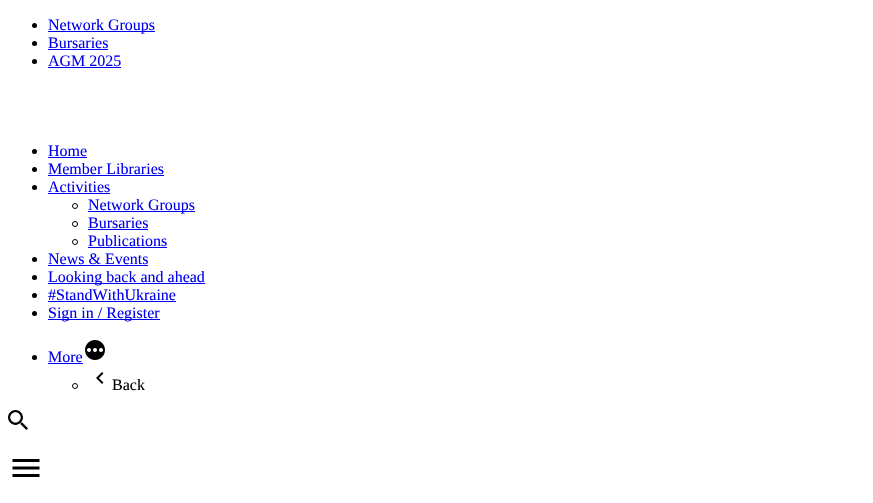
void draw(SkCanvas* canvas) {
    SkPaint paint;
    paint.setAntiAlias(true);
    canvas->clear(0xFFFFFFFF);
    paint.setColor(0xFF000000);
    canvas->drawCircle(34.5f, 25.5f, 2.5f, paint);
    paint.setColor(0xFF0000EE);
    canvas->drawRect(SkRect::MakeXYWH(48, 31, 107, 1), paint);
    SkFont font1(fontMgr->matchFamilyStyle("Liberation Serif", SkFontStyle::Normal()), 16);
    font1.setSubpixel(true);
    canvas->drawString("Network Groups", 48, 30, font1, paint);
    paint.setColor(0xFF000000);
    canvas->drawCircle(34.5f, 43.5f, 2.5f, paint);
    paint.setColor(0xFF0000EE);
    canvas->drawString("Bursaries", 48, 48, font1, paint);
    canvas->drawRect(SkRect::MakeXYWH(48, 49, 60, 1), paint);
    paint.setColor(0xFF000000);
    canvas->drawCircle(34.5f, 61.5f, 2.5f, paint);
    paint.setColor(0xFF0000EE);
    canvas->drawString("AGM 2025", 48, 66, font1, paint);
    canvas->drawRect(SkRect::MakeXYWH(48, 67, 73, 1), paint);
    paint.setColor(0xFF000000);
    canvas->drawCircle(34.5f, 151.5f, 2.5f, paint);
    paint.setColor(0xFF0000EE);
    canvas->drawString("Home", 48, 156, font1, paint);
    canvas->drawRect(SkRect::MakeXYWH(48, 157, 39, 1), paint);
    paint.setColor(0xFF000000);
    canvas->drawCircle(34.5f, 169.5f, 2.5f, paint);
    paint.setColor(0xFF0000EE);
    canvas->drawString("Member Libraries", 48, 174, font1, paint);
    canvas->drawRect(SkRect::MakeXYWH(48, 175, 116, 1), paint);
    paint.setColor(0xFF000000);
    canvas->drawCircle(34.5f, 187.5f, 2.5f, paint);
    paint.setColor(0xFF0000EE);
    canvas->drawString("Activities", 48, 192, font1, paint);
    canvas->drawRect(SkRect::MakeXYWH(48, 193, 62, 1), paint);
    paint.setStyle(SkPaint::kStroke_Style);
    paint.setStrokeWidth(1);
    paint.setColor(0xFF000000);
    canvas->drawCircle(75, 206, 2.5f, paint);
    paint.setStyle(SkPaint::kFill_Style);
    paint.setColor(0xFF0000EE);
    canvas->drawRect(SkRect::MakeXYWH(88, 211, 107, 1), paint);
    canvas->drawString("Network Groups", 88, 210, font1, paint);
    paint.setStyle(SkPaint::kStroke_Style);
    paint.setColor(0xFF000000);
    canvas->drawCircle(75, 224, 2.5f, paint);
    paint.setStyle(SkPaint::kFill_Style);
    paint.setColor(0xFF0000EE);
    canvas->drawString("Bursaries", 88, 228, font1, paint);
    canvas->drawRect(SkRect::MakeXYWH(88, 229, 60, 1), paint);
    paint.setStyle(SkPaint::kStroke_Style);
    paint.setColor(0xFF000000);
    canvas->drawCircle(75, 242, 2.5f, paint);
    paint.setStyle(SkPaint::kFill_Style);
    paint.setColor(0xFF0000EE);
    canvas->drawString("Publications", 88, 246, font1, paint);
    canvas->drawRect(SkRect::MakeXYWH(88, 247, 79, 1), paint);
    paint.setColor(0xFF000000);
    canvas->drawCircle(34.5f, 259.5f, 2.5f, paint);
    paint.setColor(0xFF0000EE);
    canvas->drawString("News & Events", 48, 264, font1, paint);
    canvas->drawRect(SkRect::MakeXYWH(48, 265, 100, 1), paint);
    paint.setColor(0xFF000000);
    canvas->drawCircle(34.5f, 277.5f, 2.5f, paint);
    paint.setColor(0xFF0000EE);
    canvas->drawRect(SkRect::MakeXYWH(48, 283, 157, 1), paint);
    canvas->drawString("Looking back and ahead", 48, 282, font1, paint);
    paint.setColor(0xFF000000);
    canvas->drawCircle(34.5f, 295.5f, 2.5f, paint);
    paint.setColor(0xFF0000EE);
    canvas->drawString("#StandWithUkraine", 48, 300, font1, paint);
    canvas->drawRect(SkRect::MakeXYWH(48, 301, 128, 1), paint);
    paint.setColor(0xFF000000);
    canvas->drawCircle(34.5f, 313.5f, 2.5f, paint);
    paint.setColor(0xFF0000EE);
    canvas->drawRect(SkRect::MakeXYWH(48, 319, 112, 1), paint);
    canvas->drawString("Sign in / Register", 48, 318, font1, paint);
    paint.setColor(0xFF000000);
    canvas->drawCircle(34.5f, 357.5f, 2.5f, paint);
    paint.setColor(0xFF0000EE);
    canvas->drawString("More", 48, 362, font1, paint);
    canvas->drawRect(SkRect::MakeXYWH(48, 363, 35, 1), paint);
    canvas->drawImageRect(SkImages::DeferredFromEncodedData(SkData::MakeFromFileName("img1.png")), SkRect::MakeXYWH(85, 340, 20, 20), SkSamplingOptions());
    paint.setStyle(SkPaint::kStroke_Style);
    paint.setColor(0xFF000000);
    canvas->drawCircle(75, 386, 2.5f, paint);
    canvas->drawImageRect(SkImages::DeferredFromEncodedData(SkData::MakeFromFileName("img2.png")), SkRect::MakeXYWH(96, 372, 8, 12), SkSamplingOptions());
    paint.setStyle(SkPaint::kFill_Style);
    canvas->drawString("Back", 112, 390, font1, paint);
    canvas->drawImageRect(SkImages::DeferredFromEncodedData(SkData::MakeFromFileName("img3.png")), SkRect::MakeXYWH(8, 410, 20, 20), SkSamplingOptions());
    canvas->drawImageRect(SkImages::DeferredFromEncodedData(SkData::MakeFromFileName("img4.png")), SkRect::MakeXYWH(12, 459, 28, 18), SkSamplingOptions());
}
